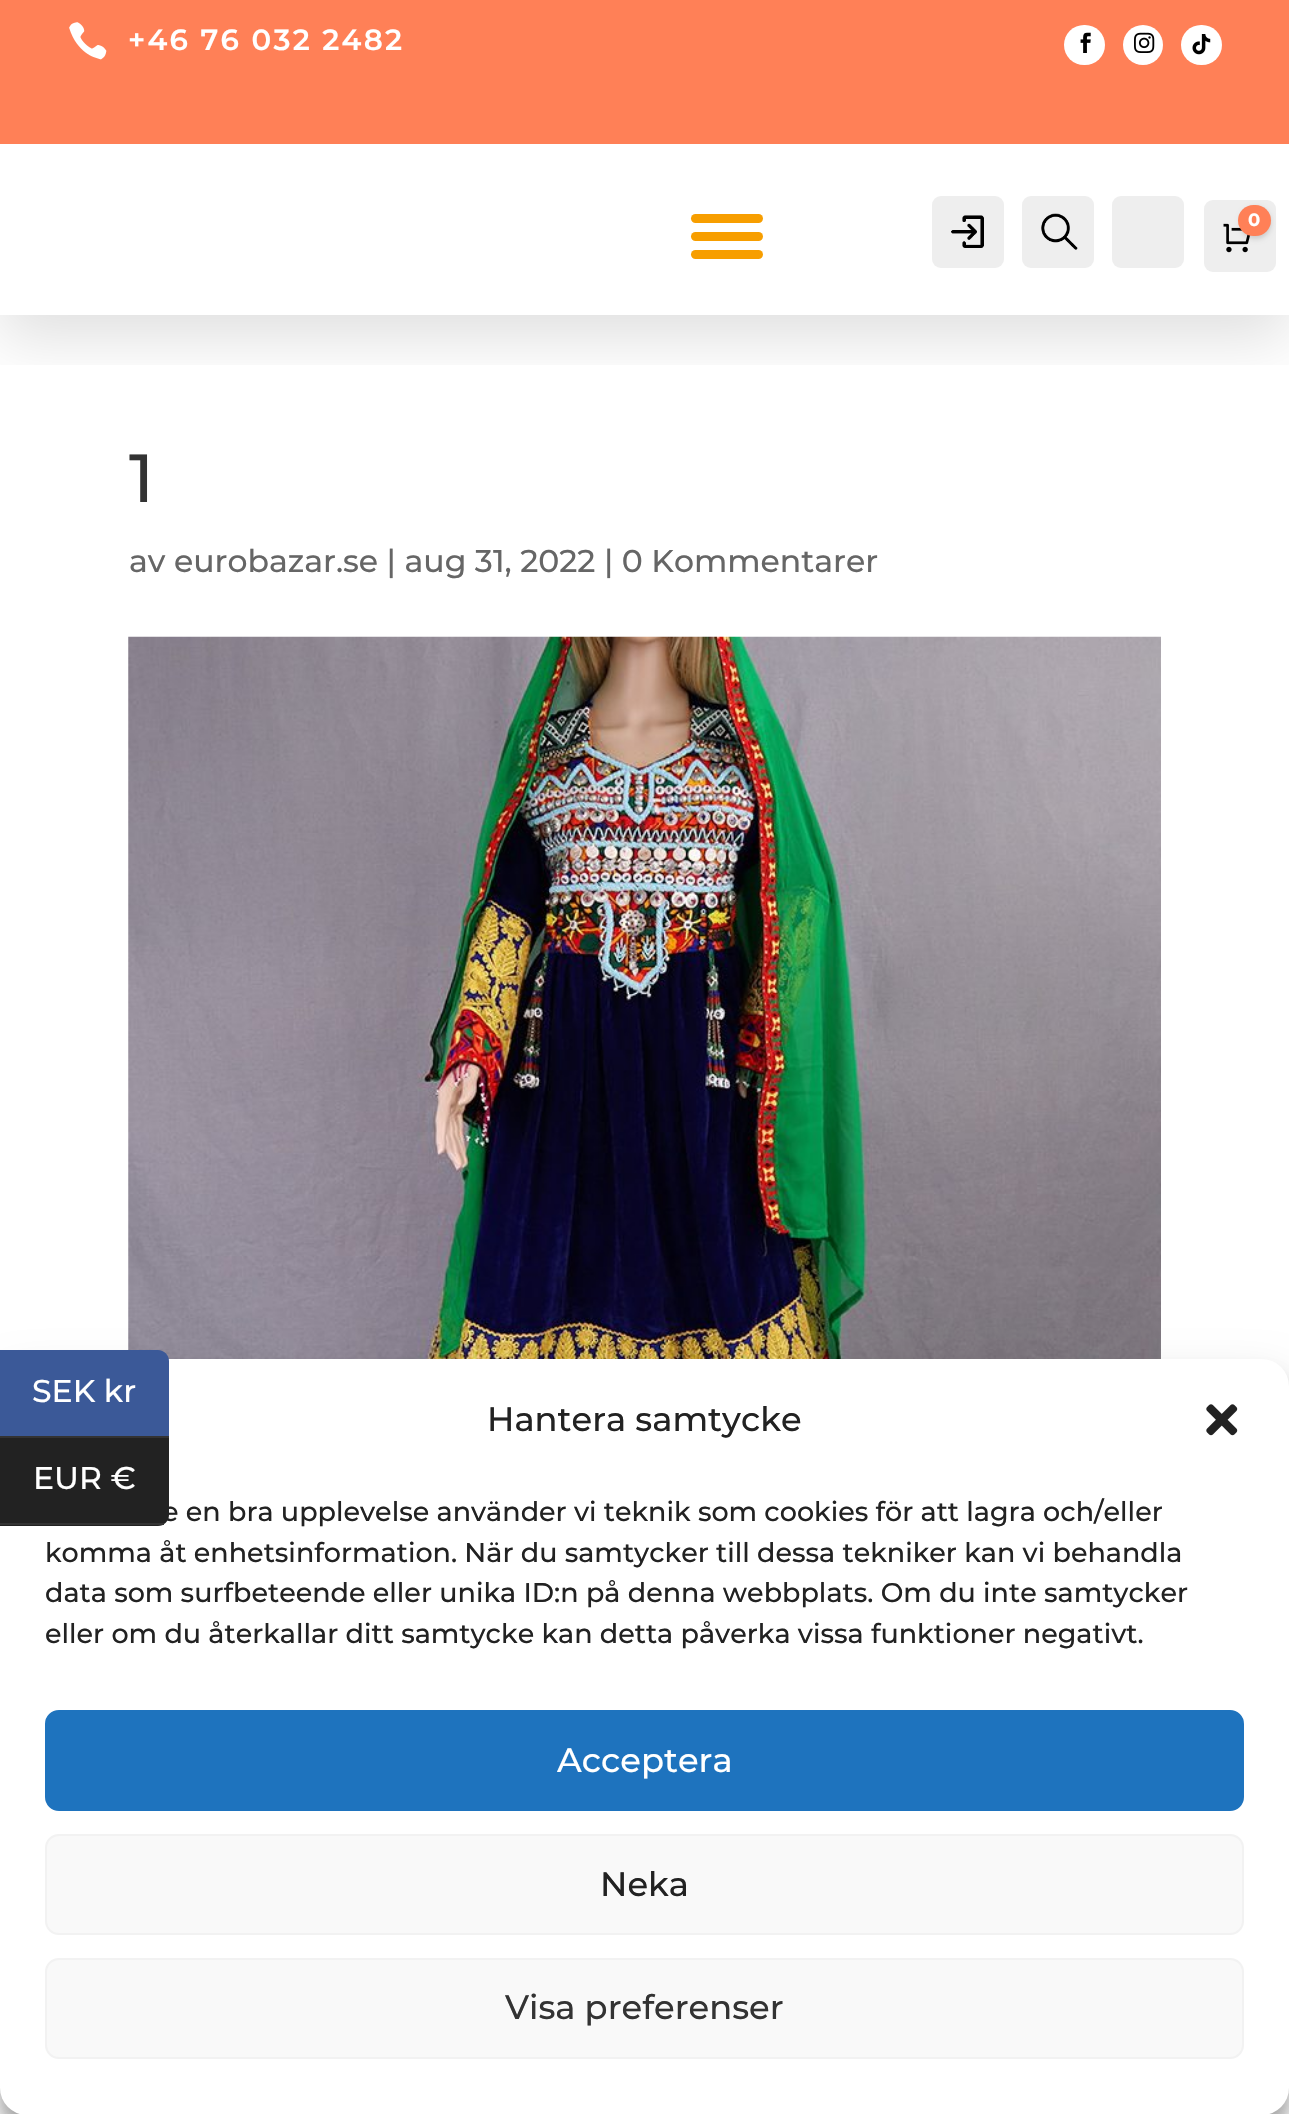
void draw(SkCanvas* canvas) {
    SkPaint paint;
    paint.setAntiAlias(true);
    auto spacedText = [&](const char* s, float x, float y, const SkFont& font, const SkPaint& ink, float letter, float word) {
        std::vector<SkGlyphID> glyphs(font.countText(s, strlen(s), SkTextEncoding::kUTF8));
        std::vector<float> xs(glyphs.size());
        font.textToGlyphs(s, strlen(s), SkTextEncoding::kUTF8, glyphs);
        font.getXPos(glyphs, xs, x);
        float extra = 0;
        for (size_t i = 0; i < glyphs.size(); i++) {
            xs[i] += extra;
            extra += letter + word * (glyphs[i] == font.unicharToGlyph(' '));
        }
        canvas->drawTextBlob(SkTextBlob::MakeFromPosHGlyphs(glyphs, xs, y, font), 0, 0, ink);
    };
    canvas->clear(0xFFFFFFFF);
    canvas->save();
    canvas->clipRect(SkRect::MakeXYWH(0, 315, 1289, 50));
    paint.setColor(0x1F000000);
    paint.setMaskFilter(SkMaskFilter::MakeBlur(kNormal_SkBlurStyle, 28));
    canvas->drawRect(SkRect::MakeXYWH(0, 23, 1289, 315), paint);
    paint.setMaskFilter(nullptr);
    canvas->restore();
    paint.setColor(0xFFFF8057);
    canvas->drawRect(SkRect::MakeXYWH(0, 0, 1289, 144), paint);
    canvas->drawImageRect(SkImages::DeferredFromEncodedData(SkData::MakeFromFileName("img1.png")), SkRect::MakeXYWH(69, 22, 38, 38), SkSamplingOptions());
    SkFont font1(fontMgr->matchFamilyStyle("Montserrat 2", SkFontStyle(100, SkFontStyle::kNormal_Width, SkFontStyle::kUpright_Slant)), 29.25f);
    font1.setSubpixel(true);
    paint.setColor(0xFFFFFFFF);
    spacedText("+46 76 032 2482", 128, 50, font1, paint, 2.25f, 0);
    canvas->drawRoundRect(SkRect::MakeXYWH(1064, 25, 41, 40), 20, 20, paint);
    canvas->drawImageRect(SkImages::DeferredFromEncodedData(SkData::MakeFromFileName("img2.png")), SkRect::MakeXYWH(1080, 32, 11, 21), SkSamplingOptions());
    canvas->drawCircle(1143, 45, 20, paint);
    canvas->drawImageRect(SkImages::DeferredFromEncodedData(SkData::MakeFromFileName("img3.png")), SkRect::MakeXYWH(1134, 32, 21, 21), SkSamplingOptions());
    canvas->drawRoundRect(SkRect::MakeXYWH(1181, 25, 41, 40), 20, 20, paint);
    canvas->drawImageRect(SkImages::DeferredFromEncodedData(SkData::MakeFromFileName("img4.png")), SkRect::MakeXYWH(1192, 34, 19, 21), SkSamplingOptions());
    paint.setColor(0xFFF79E00);
    canvas->drawRoundRect(SkRect::MakeXYWH(691, 214, 72, 9), 4.5f, 4.5f, paint);
    canvas->drawRoundRect(SkRect::MakeXYWH(691, 232, 72, 9), 4.5f, 4.5f, paint);
    canvas->drawRoundRect(SkRect::MakeXYWH(691, 250, 72, 9), 4.5f, 4.5f, paint);
    paint.setColor(0xFFEEEEEE);
    canvas->drawRoundRect(SkRect::MakeXYWH(932, 196, 72, 72), 9, 9, paint);
    canvas->drawImageRect(SkImages::DeferredFromEncodedData(SkData::MakeFromFileName("img5.png")), SkRect::MakeXYWH(951, 215, 33, 33), SkSamplingOptions());
    canvas->drawRoundRect(SkRect::MakeXYWH(1022, 196, 72, 72), 9, 9, paint);
    canvas->drawImageRect(SkImages::DeferredFromEncodedData(SkData::MakeFromFileName("img6.png")), SkRect::MakeXYWH(1041, 213, 37, 37), SkSamplingOptions());
    canvas->drawRoundRect(SkRect::MakeXYWH(1112, 196, 72, 72), 9, 9, paint);
    canvas->drawRoundRect(SkRect::MakeXYWH(1204, 200, 72, 72), 9, 9, paint);
    canvas->drawImageRect(SkImages::DeferredFromEncodedData(SkData::MakeFromFileName("img7.png")), SkRect::MakeXYWH(1223, 223, 28, 30), SkSamplingOptions());
    paint.setColor(0x26000000);
    paint.setMaskFilter(SkMaskFilter::MakeBlur(kNormal_SkBlurStyle, 2.5f));
    canvas->drawRoundRect(SkRect::MakeXYWH(1240, 207, 31, 32), 15.5f, 15.5f, paint);
    paint.setMaskFilter(nullptr);
    paint.setColor(0xFFFF8057);
    canvas->drawRoundRect(SkRect::MakeXYWH(1238, 205, 33, 31), 15.5f, 15.5f, paint);
    SkFont font2(fontMgr->matchFamilyStyle("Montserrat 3", SkFontStyle(100, SkFontStyle::kNormal_Width, SkFontStyle::kUpright_Slant)), 18);
    font2.setSubpixel(true);
    paint.setColor(0xFFFFFFFF);
    canvas->drawString("0", 1248, 226, font2, paint);
    SkFont font3(fontMgr->matchFamilyStyle("Montserrat", SkFontStyle(100, SkFontStyle::kNormal_Width, SkFontStyle::kUpright_Slant)), 68);
    font3.setSubpixel(true);
    paint.setColor(0xFF333333);
    canvas->drawString("1", 129, 502, font3, paint);
    SkFont font4(fontMgr->matchFamilyStyle("Montserrat", SkFontStyle(100, SkFontStyle::kNormal_Width, SkFontStyle::kUpright_Slant)), 31.5f);
    font4.setSubpixel(true);
    paint.setColor(0xFF666666);
    canvas->drawString("av eurobazar.se | aug 31, 2022 | 0 Kommentarer", 129, 572, font4, paint);
    canvas->drawImageRect(SkImages::DeferredFromEncodedData(SkData::MakeFromFileName("img8.png")), SkRect::MakeXYWH(128, 636, 1033, 723), SkSamplingOptions());
    paint.setColor(0x3B000000);
    paint.setMaskFilter(SkMaskFilter::MakeBlur(kNormal_SkBlurStyle, 7));
    canvas->drawRoundRect(SkRect::MakeXYWH(0, 1373, 1289, 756), 27, 27, paint);
    paint.setMaskFilter(nullptr);
    paint.setColor(0x30000000);
    paint.setMaskFilter(SkMaskFilter::MakeBlur(kNormal_SkBlurStyle, 22.5f));
    canvas->drawRoundRect(SkRect::MakeXYWH(0, 1382, 1289, 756), 27, 27, paint);
    paint.setMaskFilter(nullptr);
    paint.setColor(0xFFFFFFFF);
    canvas->drawRoundRect(SkRect::MakeXYWH(0, 1359, 1289, 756), 27, 27, paint);
    paint.setColor(0xFF3B5998);
    canvas->drawPath(SkPathBuilder().moveTo(0, 1350).lineTo(158, 1350).cubicTo(164, 1350, 169, 1355, 169, 1361).lineTo(169, 1438).lineTo(0, 1438).close().detach(), paint);
    paint.setColor(0xFF333333);
    canvas->drawRect(SkRect::MakeXYWH(0, 1436, 169, 2), paint);
    paint.setColor(0xFFFFFFFF);
    canvas->drawString("SEK kr", 32, 1402, font4, paint);
    paint.setColor(0xFF222222);
    canvas->drawPath(SkPathBuilder().moveTo(0, 1438).lineTo(169, 1438).lineTo(169, 1515).cubicTo(169, 1521, 164, 1526, 158, 1526).lineTo(0, 1526).close().detach(), paint);
    SkFont font5(fontMgr->matchFamilyStyle("Montserrat", SkFontStyle(100, SkFontStyle::kNormal_Width, SkFontStyle::kUpright_Slant)), 27);
    font5.setSubpixel(true);
    canvas->drawString("e en bra upplevelse använder vi teknik som cookies för att lagra och/eller", 162, 1521, font5, paint);
    paint.setColor(0xFF333333);
    canvas->drawRect(SkRect::MakeXYWH(0, 1523, 164, 2), paint);
    paint.setColor(0xFFFFFFFF);
    canvas->drawString("EUR €", 33, 1489, font4, paint);
    SkFont font6(fontMgr->matchFamilyStyle("Montserrat", SkFontStyle(100, SkFontStyle::kNormal_Width, SkFontStyle::kUpright_Slant)), 33.75f);
    font6.setSubpixel(true);
    paint.setColor(0xFF222222);
    canvas->drawString("Hantera samtycke", 487, 1431, font6, paint);
    canvas->drawImageRect(SkImages::DeferredFromEncodedData(SkData::MakeFromFileName("img9.png")), SkRect::MakeXYWH(1206, 1404, 32, 32), SkSamplingOptions());
    canvas->drawString("komma åt enhetsinformation. När du samtycker till dessa tekniker kan vi behandla", 45, 1562, font5, paint);
    canvas->drawString("data som surfbeteende eller unika ID:n på denna webbplats. Om du inte samtycker", 45, 1602, font5, paint);
    canvas->drawString("eller om du återkallar ditt samtycke kan detta påverka vissa funktioner negativt.", 45, 1643, font5, paint);
    paint.setColor(0xFF1E73BE);
    canvas->drawRoundRect(SkRect::MakeXYWH(46, 1711, 1197, 99), 13, 13, paint);
    paint.setStyle(SkPaint::kStroke_Style);
    paint.setStrokeWidth(2);
    canvas->drawRoundRect(SkRect::MakeXYWH(46, 1711, 1197, 99), 13, 13, paint);
    paint.setStyle(SkPaint::kFill_Style);
    paint.setColor(0xFFFFFFFF);
    canvas->drawString("Acceptera", 557, 1772, font6, paint);
    paint.setColor(0xFFF9F9F9);
    canvas->drawRoundRect(SkRect::MakeXYWH(46, 1835, 1197, 99), 13, 13, paint);
    paint.setStyle(SkPaint::kStroke_Style);
    paint.setColor(0xFFF2F2F2);
    canvas->drawRoundRect(SkRect::MakeXYWH(46, 1835, 1197, 99), 13, 13, paint);
    paint.setStyle(SkPaint::kFill_Style);
    paint.setColor(0xFF222222);
    canvas->drawString("Neka", 600, 1896, font6, paint);
    paint.setColor(0xFFF9F9F9);
    canvas->drawRoundRect(SkRect::MakeXYWH(46, 1959, 1197, 99), 13, 13, paint);
    paint.setStyle(SkPaint::kStroke_Style);
    paint.setColor(0xFFF2F2F2);
    canvas->drawRoundRect(SkRect::MakeXYWH(46, 1959, 1197, 99), 13, 13, paint);
    paint.setStyle(SkPaint::kFill_Style);
    paint.setColor(0xFF333333);
    canvas->drawString("Visa preferenser", 505, 2019, font6, paint);
}
